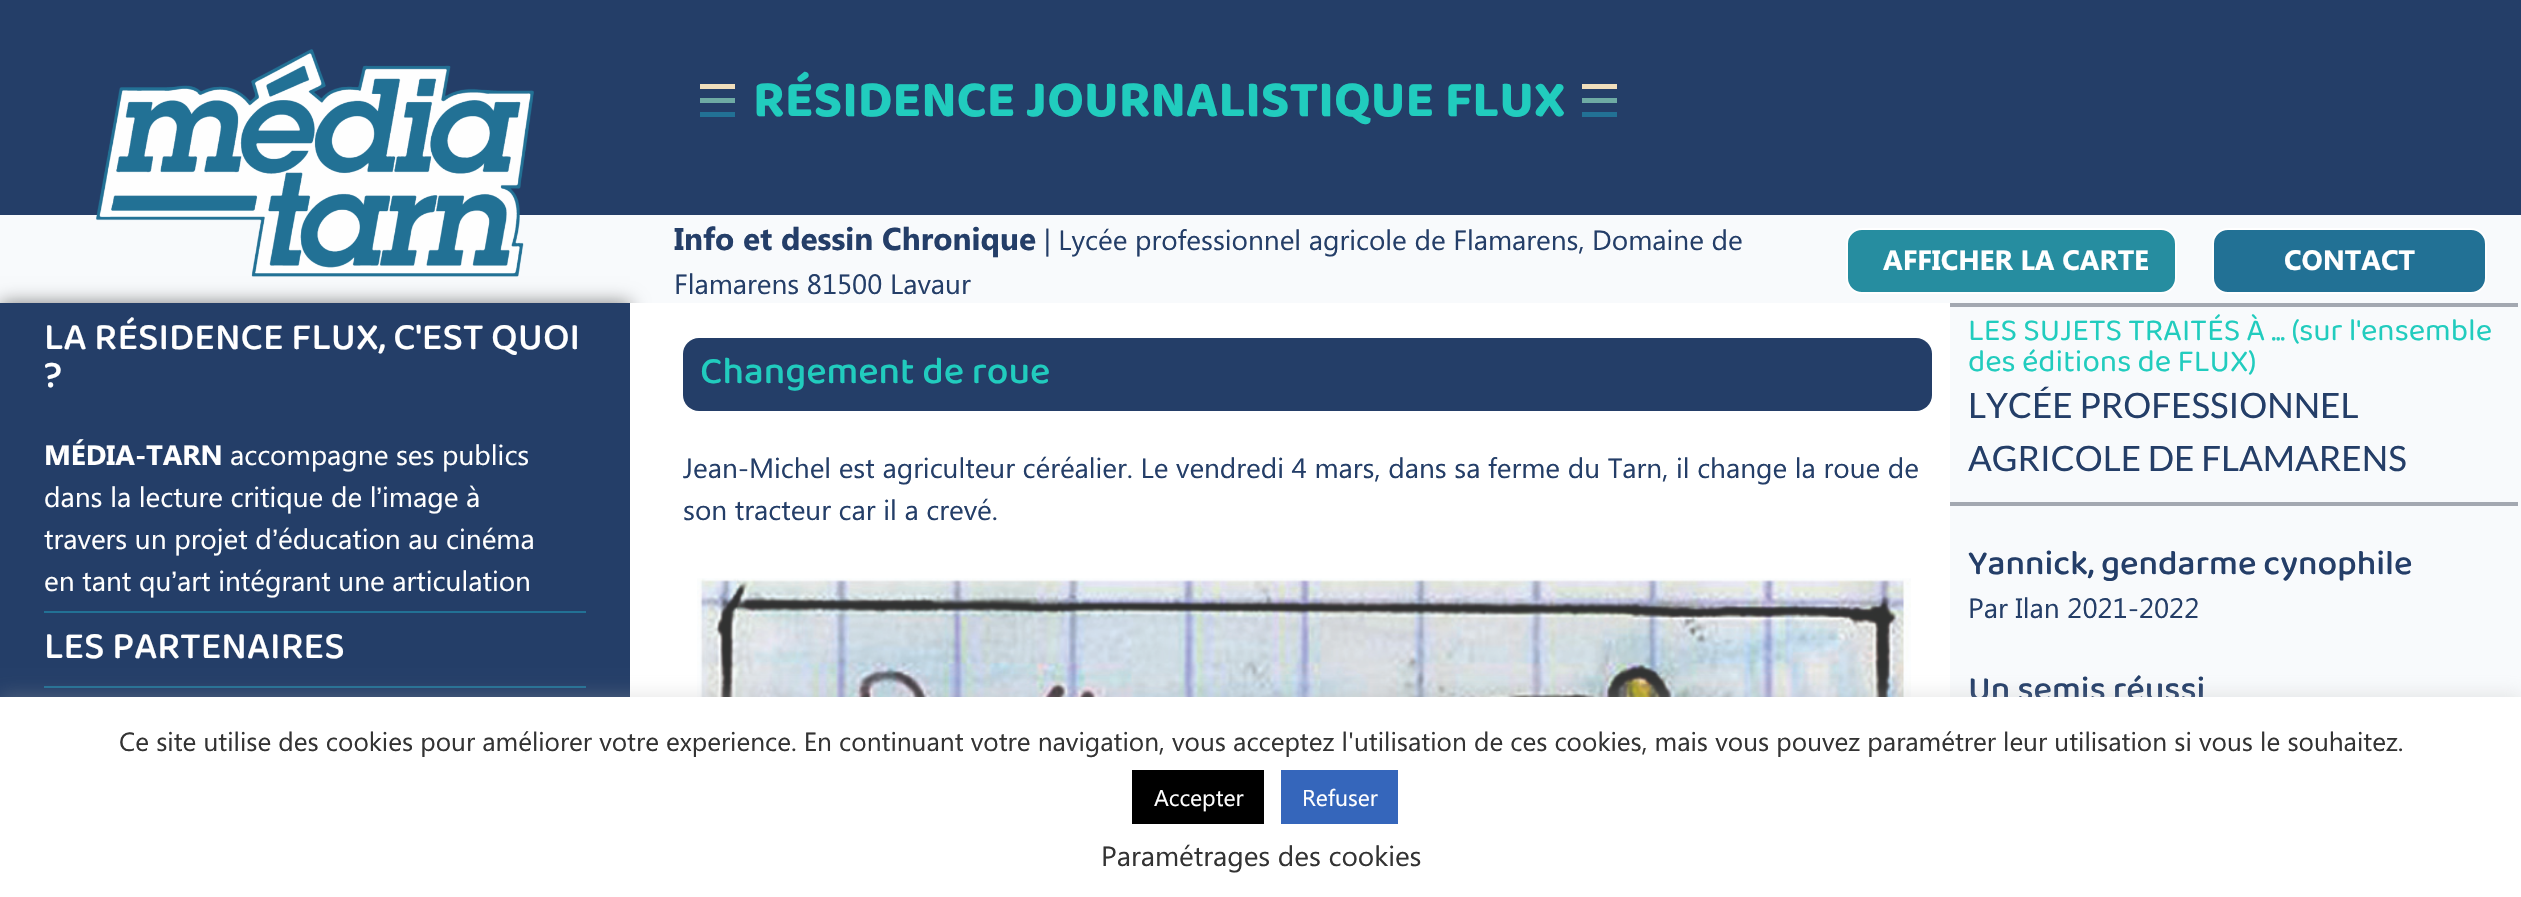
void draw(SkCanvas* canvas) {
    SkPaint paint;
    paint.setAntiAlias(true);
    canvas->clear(0xFF243E68);
    paint.setColor(0xFFF8FAFC);
    canvas->drawRect(SkRect::MakeXYWH(0, 215, 2521, 482), paint);
    paint.setColor(0x80000000);
    paint.setMaskFilter(SkMaskFilter::MakeBlur(kNormal_SkBlurStyle, 9));
    canvas->drawRect(SkRect::MakeXYWH(0, 303, 630, 530), paint);
    paint.setMaskFilter(nullptr);
    canvas->drawImageRect(SkImages::DeferredFromEncodedData(SkData::MakeFromFileName("img1.png")), SkRect::MakeXYWH(96, 49, 438, 228), SkSamplingOptions());
    paint.setColor(0xFFF0DEBC);
    canvas->drawRect(SkRect::MakeXYWH(700, 84, 35, 5), paint);
    paint.setColor(0xFF6EABA4);
    canvas->drawRect(SkRect::MakeXYWH(700, 98, 35, 5), paint);
    paint.setColor(0xFF227195);
    canvas->drawRect(SkRect::MakeXYWH(700, 112, 35, 5), paint);
    SkFont font1(fontMgr->matchFamilyStyle("Baloo 2", SkFontStyle::Bold()), 52.5f);
    font1.setSubpixel(true);
    paint.setColor(0xFF21CCBE);
    canvas->drawString("RÉSIDENCE JOURNALISTIQUE FLUX", 753, 116, font1, paint);
    paint.setColor(0xFFF0DEBC);
    canvas->drawRect(SkRect::MakeXYWH(1582, 84, 35, 5), paint);
    paint.setColor(0xFF6EABA4);
    canvas->drawRect(SkRect::MakeXYWH(1582, 98, 35, 5), paint);
    paint.setColor(0xFF227195);
    canvas->drawRect(SkRect::MakeXYWH(1582, 112, 35, 5), paint);
    paint.setColor(0xFF243E68);
    canvas->drawRect(SkRect::MakeXYWH(0, 303, 630, 394), paint);
    paint.setColor(0xFF227195);
    canvas->drawRect(SkRect::MakeXYWH(44, 611, 542, 2), paint);
    SkFont font2(fontMgr->matchFamilyStyle("Baloo 2", SkFontStyle(500, SkFontStyle::kNormal_Width, SkFontStyle::kUpright_Slant)), 38.5f);
    font2.setSubpixel(true);
    paint.setColor(0xFFFFFFFF);
    canvas->drawString("LA RÉSIDENCE FLUX, C'EST QUOI", 44, 349, font2, paint);
    canvas->drawString("?", 44, 387, font2, paint);
    SkFont font3(fontMgr->matchFamilyStyle("Segoe UI", SkFontStyle::Bold()), 28);
    font3.setSubpixel(true);
    canvas->drawString("MÉDIA-TARN", 44, 465, font3, paint);
    SkFont font4(fontMgr->matchFamilyStyle("Segoe UI", SkFontStyle::Normal()), 28);
    font4.setSubpixel(true);
    canvas->drawString("accompagne ses publics", 230, 465, font4, paint);
    canvas->drawString("dans la lecture critique de l", 44, 507, font4, paint);
    SkFont font5(fontMgr->matchFamilyStyle("Liberation Sans", SkFontStyle::Normal()), 28);
    font5.setSubpixel(true);
    canvas->drawString("’", 376, 507, font5, paint);
    canvas->drawString("image à", 382, 507, font4, paint);
    canvas->drawString("travers un projet d", 44, 549, font4, paint);
    canvas->drawString("’", 272, 549, font5, paint);
    canvas->drawString("éducation au cinéma", 278, 549, font4, paint);
    canvas->drawString("en tant qu", 44, 591, font4, paint);
    canvas->drawString("’", 171, 591, font5, paint);
    canvas->drawString("art intégrant une articulation", 177, 591, font4, paint);
    paint.setColor(0xFF227195);
    canvas->drawRect(SkRect::MakeXYWH(44, 686, 542, 2), paint);
    paint.setColor(0xFFFFFFFF);
    canvas->drawString("LES PARTENAIRES", 44, 658, font2, paint);
    SkFont font6(fontMgr->matchFamilyStyle("Segoe UI", SkFontStyle::Bold()), 31.5f);
    font6.setSubpixel(true);
    paint.setColor(0xFF243E68);
    canvas->drawString("Info et dessin Chronique", 674, 250, font6, paint);
    canvas->drawString("| Lycée professionnel agricole de Flamarens, Domaine de", 1044, 250, font4, paint);
    canvas->drawString("Flamarens 81500 Lavaur", 674, 294, font4, paint);
    paint.setColor(0xFF268DA0);
    canvas->drawRoundRect(SkRect::MakeXYWH(1847, 229, 329, 64), 15, 15, paint);
    paint.setStyle(SkPaint::kStroke_Style);
    paint.setStrokeWidth(2);
    paint.setColor(0xFFFFFFFF);
    canvas->drawRoundRect(SkRect::MakeXYWH(1847, 229, 329, 64), 15, 15, paint);
    paint.setStyle(SkPaint::kFill_Style);
    canvas->drawString("AFFICHER LA CARTE", 1883, 270, font3, paint);
    paint.setColor(0xFF227195);
    canvas->drawRoundRect(SkRect::MakeXYWH(2213, 229, 273, 64), 15, 15, paint);
    paint.setStyle(SkPaint::kStroke_Style);
    paint.setColor(0xFFFFFFFF);
    canvas->drawRoundRect(SkRect::MakeXYWH(2213, 229, 273, 64), 15, 15, paint);
    paint.setStyle(SkPaint::kFill_Style);
    canvas->drawString("CONTACT", 2284, 270, font3, paint);
    canvas->drawRect(SkRect::MakeXYWH(630, 303, 1320, 394), paint);
    paint.setColor(0xFF243E68);
    canvas->drawRoundRect(SkRect::MakeXYWH(683, 338, 1249, 73), 16, 16, paint);
    paint.setColor(0xFF21CCBE);
    canvas->drawString("Changement de roue", 700, 383, font2, paint);
    paint.setColor(0xFF243E68);
    canvas->drawString("Jean-Michel est agriculteur céréalier. Le vendredi 4 mars, dans sa ferme du Tarn, il change la roue de", 683, 478, font4, paint);
    canvas->drawString("son tracteur car il a crevé.", 683, 520, font4, paint);
    canvas->drawImageRect(SkImages::DeferredFromEncodedData(SkData::MakeFromFileName("img2.png")), SkRect::MakeXYWH(697, 578, 1214, 119), SkSamplingOptions());
    paint.setColor(0xFFA3A8B1);
    canvas->drawRect(SkRect::MakeXYWH(1950, 303, 568, 4), paint);
    SkFont font7(fontMgr->matchFamilyStyle("Baloo 2", SkFontStyle::Normal()), 31.5f);
    font7.setSubpixel(true);
    paint.setColor(0xFF21CCBE);
    canvas->drawString("LES SUJETS TRAITÉS À ... (sur l'ensemble", 1968, 340, font7, paint);
    canvas->drawString("des éditions de FLUX)", 1968, 371, font7, paint);
    SkFont font8(fontMgr->matchFamilyStyle("Lato", SkFontStyle::Normal()), 35);
    font8.setSubpixel(true);
    paint.setColor(0xFF243E68);
    canvas->drawString("LYCÉE PROFESSIONNEL", 1968, 418, font8, paint);
    canvas->drawString("AGRICOLE DE FLAMARENS", 1968, 471, font8, paint);
    paint.setColor(0xFFA3A8B1);
    canvas->drawRect(SkRect::MakeXYWH(1950, 502, 568, 4), paint);
    SkFont font9(fontMgr->matchFamilyStyle("Baloo 2", SkFontStyle(500, SkFontStyle::kNormal_Width, SkFontStyle::kUpright_Slant)), 35);
    font9.setSubpixel(true);
    paint.setColor(0xFF243E68);
    canvas->drawString("Yannick, gendarme cynophile", 1968, 574, font9, paint);
    canvas->drawString("Par Ilan 2021-2022", 1968, 618, font4, paint);
    canvas->drawString("Un semis réussi", 1968, 700, font9, paint);
    paint.setColor(0x4DACABAB);
    paint.setMaskFilter(SkMaskFilter::MakeBlur(kNormal_SkBlurStyle, 9));
    canvas->drawRect(SkRect::MakeXYWH(0, 695, 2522, 201), paint);
    paint.setMaskFilter(nullptr);
    paint.setColor(0xFFFFFFFF);
    canvas->drawRect(SkRect::MakeXYWH(0, 697, 2521, 200), paint);
    SkFont font10(fontMgr->matchFamilyStyle("Segoe UI", SkFontStyle::Normal()), 26.25f);
    font10.setSubpixel(true);
    paint.setColor(0xFF333333);
    canvas->drawString("Ce site utilise des cookies pour améliorer votre experience. En continuant votre navigation, vous acceptez l'utilisation de ces cookies, mais vous pouvez paramétrer leur utilisation si vous le souhaitez.", 119, 751, font10, paint);
    paint.setColor(0xFF000000);
    canvas->drawRect(SkRect::MakeXYWH(1132, 770, 132, 54), paint);
    SkFont font11(fontMgr->matchFamilyStyle("Segoe UI", SkFontStyle::Normal()), 23);
    font11.setSubpixel(true);
    paint.setColor(0xFFFFFFFF);
    canvas->drawString("Accepter", 1154, 806, font11, paint);
    paint.setColor(0xFF3566BB);
    canvas->drawRect(SkRect::MakeXYWH(1281, 770, 117, 54), paint);
    paint.setColor(0xFFFFFFFF);
    canvas->drawString("Refuser", 1302, 806, font11, paint);
    paint.setColor(0xFF333333);
    canvas->drawString("Paramétrages des cookies", 1101, 866, font4, paint);
}
